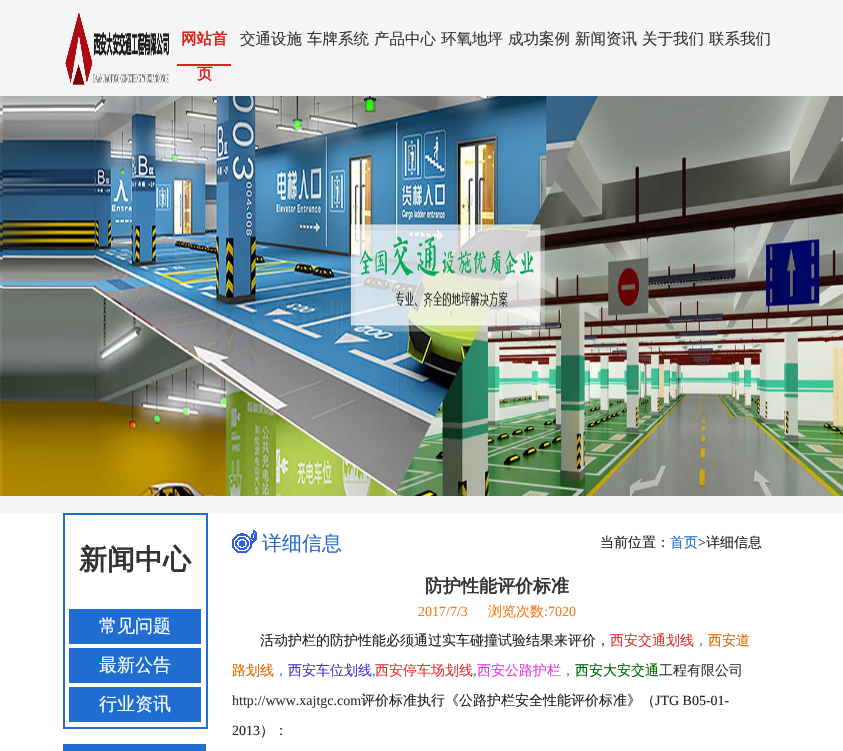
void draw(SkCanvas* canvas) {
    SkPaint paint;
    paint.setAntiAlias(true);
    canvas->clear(0xFFFFFFFF);
    paint.setColor(0xFFF5F5F5);
    canvas->drawRect(SkRect::MakeXYWH(0, 0, 843, 513), paint);
    canvas->drawImageRect(SkImages::DeferredFromEncodedData(SkData::MakeFromFileName("img1.png")), SkRect::MakeXYWH(65, 12, 104, 73), SkSamplingOptions());
    paint.setColor(0xFFD9241B);
    canvas->drawRect(SkRect::MakeXYWH(177, 64, 54, 2), paint);
    SkFont font1(fontMgr->matchFamilyStyle("WenQuanYi Zen Hei", SkFontStyle::Bold()), 15.5f);
    font1.setSubpixel(true);
    canvas->drawString("网站首", 181, 44, font1, paint);
    canvas->drawString("页", 197, 79, font1, paint);
    SkFont font2(fontMgr->matchFamilyStyle("WenQuanYi Zen Hei", SkFontStyle(500, SkFontStyle::kNormal_Width, SkFontStyle::kUpright_Slant)), 15.5f);
    font2.setSubpixel(true);
    paint.setColor(0xFF333333);
    canvas->drawString("交通设施", 240, 44, font2, paint);
    canvas->drawString("车牌系统", 307, 44, font2, paint);
    canvas->drawString("产品中心", 374, 44, font2, paint);
    canvas->drawString("环氧地坪", 441, 44, font2, paint);
    canvas->drawString("成功案例", 508, 44, font2, paint);
    canvas->drawString("新闻资讯", 575, 44, font2, paint);
    canvas->drawString("关于我们", 642, 44, font2, paint);
    canvas->drawString("联系我们", 709, 44, font2, paint);
    canvas->drawImageRect(SkImages::DeferredFromEncodedData(SkData::MakeFromFileName("img2.png")), SkRect::MakeXYWH(0, 96, 843, 400), SkSamplingOptions());
    paint.setStyle(SkPaint::kStroke_Style);
    paint.setStrokeWidth(2);
    paint.setColor(0xFF1F6DD1);
    canvas->drawRect(SkRect::MakeXYWH(64, 514, 143, 214), paint);
    SkFont font3(fontMgr->matchFamilyStyle("WenQuanYi Zen Hei", SkFontStyle::Bold()), 28);
    font3.setSubpixel(true);
    paint.setStyle(SkPaint::kFill_Style);
    paint.setColor(0xFF333333);
    canvas->drawString("新闻中心", 79, 569, font3, paint);
    paint.setColor(0xFF1F6DD1);
    canvas->drawRect(SkRect::MakeXYWH(69, 609, 132, 35), paint);
    SkFont font4(fontMgr->matchFamilyStyle("WenQuanYi Zen Hei", SkFontStyle(500, SkFontStyle::kNormal_Width, SkFontStyle::kUpright_Slant)), 18);
    font4.setSubpixel(true);
    paint.setColor(0xFFFFFFFF);
    canvas->drawString("常见问题", 99, 632, font4, paint);
    paint.setColor(0xFF1F6DD1);
    canvas->drawRect(SkRect::MakeXYWH(69, 648, 132, 35), paint);
    paint.setColor(0xFFFFFFFF);
    canvas->drawString("最新公告", 99, 671, font4, paint);
    paint.setColor(0xFF1F6DD1);
    canvas->drawRect(SkRect::MakeXYWH(69, 687, 132, 35), paint);
    paint.setColor(0xFFFFFFFF);
    canvas->drawString("行业资讯", 99, 710, font4, paint);
    paint.setColor(0xFF1F6DD1);
    canvas->drawRect(SkRect::MakeXYWH(63, 744, 143, 7), paint);
    canvas->drawImageRect(SkImages::DeferredFromEncodedData(SkData::MakeFromFileName("img3.png")), SkRect::MakeXYWH(232, 530, 25, 23), SkSamplingOptions());
    SkFont font5(fontMgr->matchFamilyStyle("WenQuanYi Zen Hei", SkFontStyle(500, SkFontStyle::kNormal_Width, SkFontStyle::kUpright_Slant)), 20);
    font5.setSubpixel(true);
    canvas->drawString("详细信息", 262, 550, font5, paint);
    SkFont font6(fontMgr->matchFamilyStyle("WenQuanYi Zen Hei", SkFontStyle(500, SkFontStyle::kNormal_Width, SkFontStyle::kUpright_Slant)), 14);
    font6.setSubpixel(true);
    paint.setColor(0xFF212121);
    canvas->drawString("当前位置：", 600, 547, font6, paint);
    paint.setColor(0xFF1F6DD1);
    canvas->drawString("首页", 670, 547, font6, paint);
    SkFont font7(fontMgr->matchFamilyStyle("Liberation Serif", SkFontStyle::Normal()), 14);
    font7.setSubpixel(true);
    paint.setColor(0xFF212121);
    canvas->drawString(">", 698, 547, font7, paint);
    canvas->drawString("详细信息", 706, 547, font6, paint);
    SkFont font8(fontMgr->matchFamilyStyle("WenQuanYi Zen Hei", SkFontStyle::Bold()), 18);
    font8.setSubpixel(true);
    paint.setColor(0xFF333333);
    canvas->drawString("防护性能评价标准", 425, 592, font8, paint);
    paint.setColor(0xFFF87A1A);
    canvas->drawString("2017/7/3", 418, 616, font7, paint);
    canvas->drawString("浏览次数", 488, 616, font6, paint);
    canvas->drawString(":7020", 544, 616, font7, paint);
    paint.setColor(0xFF212121);
    canvas->drawString("活动护栏的防护性能必须通过实车碰撞试验结果来评价，", 260, 645, font6, paint);
    paint.setColor(0xFFE53333);
    canvas->drawString("西安交通划线", 610, 645, font6, paint);
    paint.setColor(0xFF1F6DD1);
    canvas->drawString("，", 694, 645, font6, paint);
    paint.setColor(0xFFE56600);
    canvas->drawString("西安道", 708, 645, font6, paint);
    canvas->drawString("路划线", 232, 675, font6, paint);
    paint.setColor(0xFF1F6DD1);
    canvas->drawString("，", 274, 675, font6, paint);
    paint.setColor(0xFF4C33E5);
    canvas->drawString("西安车位划线", 288, 675, font6, paint);
    paint.setColor(0xFF1F6DD1);
    canvas->drawString(",", 372, 675, font7, paint);
    paint.setColor(0xFFE53333);
    canvas->drawString("西安停车场划线", 375, 675, font6, paint);
    paint.setColor(0xFF1F6DD1);
    canvas->drawString(",", 473, 675, font7, paint);
    paint.setColor(0xFFEE33EE);
    canvas->drawString("西安公路护栏", 477, 675, font6, paint);
    paint.setColor(0xFF1F6DD1);
    canvas->drawString("，", 561, 675, font6, paint);
    paint.setColor(0xFF006600);
    canvas->drawString("西安大安交通", 575, 675, font6, paint);
    paint.setColor(0xFF333333);
    canvas->drawString("工程有限公司", 659, 675, font6, paint);
    canvas->drawString("http://www.xajtgc.com", 232, 705, font7, paint);
    paint.setColor(0xFF212121);
    canvas->drawString("评价标准执行《公路护栏安全性能评价标准》（", 361, 705, font6, paint);
    canvas->drawString("JTG B05-01-", 655, 705, font7, paint);
    canvas->drawString("2013", 232, 735, font7, paint);
    canvas->drawString("）：", 260, 735, font6, paint);
}
